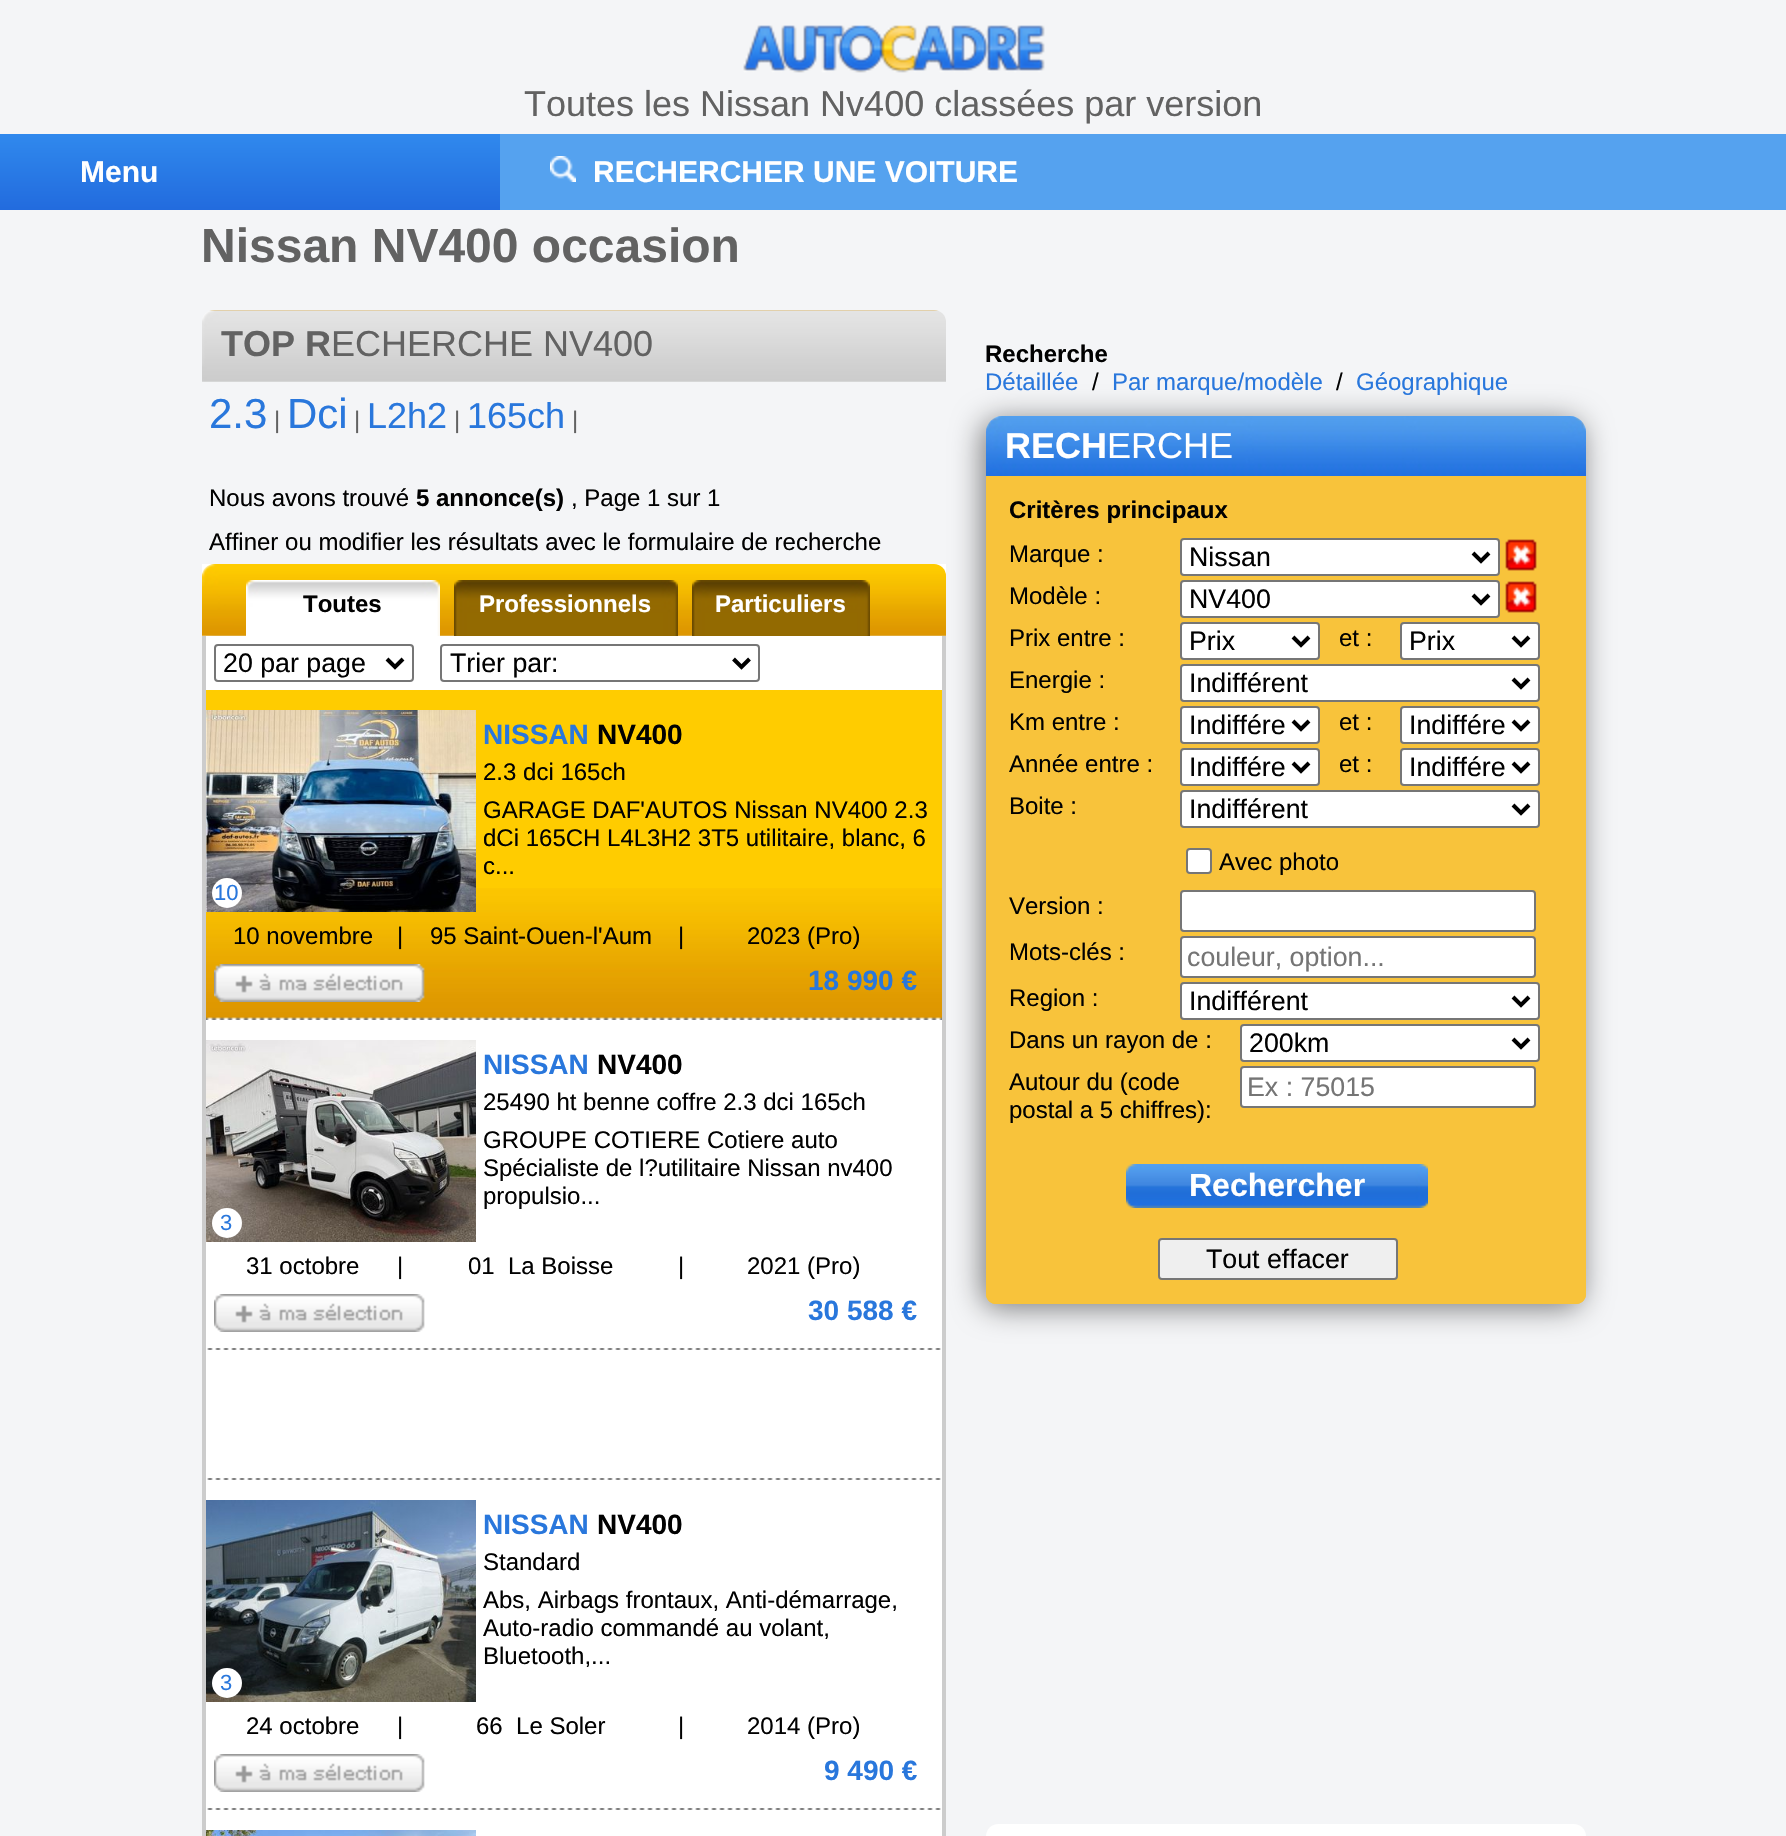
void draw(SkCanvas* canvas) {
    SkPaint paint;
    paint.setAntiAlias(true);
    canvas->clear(0xFFF4F5F7);
    canvas->drawImageRect(SkImages::DeferredFromEncodedData(SkData::MakeFromFileName("img1.png")), SkRect::MakeXYWH(743, 25, 302, 48), SkSamplingOptions());
    SkFont font1(fontMgr->matchFamilyStyle("Liberation Sans", SkFontStyle::Normal()), 36);
    font1.setSubpixel(true);
    paint.setColor(0xFF626262);
    canvas->drawString("Toutes les Nissan Nv400 classées par version", 524, 116, font1, paint);
    {
        const SkColor colors[] = {0xFF3089ED, 0xFF226BDE};
        const float stops[] = {0, 1};
        const SkPoint ends[] = {{250, 134}, {250, 210}};
        paint.setShader(SkGradientShader::MakeLinear(ends, colors, stops, 2, SkTileMode::kClamp));
        paint.setAlpha(255);
    }
    canvas->drawRect(SkRect::MakeXYWH(0, 134, 500, 76), paint);
    SkFont font2(fontMgr->matchFamilyStyle("Liberation Sans", SkFontStyle::Bold()), 30);
    font2.setSubpixel(true);
    paint.setShader(nullptr);
    paint.setColor(0xFFFFFFFF);
    canvas->drawString("Menu", 80, 182, font2, paint);
    paint.setColor(0xFF55A2EF);
    canvas->drawRect(SkRect::MakeXYWH(500, 134, 1286, 76), paint);
    canvas->drawImageRect(SkImages::DeferredFromEncodedData(SkData::MakeFromFileName("img2.png")), SkRect::MakeXYWH(550, 156, 26, 26), SkSamplingOptions());
    paint.setColor(0xFFFFFFFF);
    canvas->drawString("RECHERCHER UNE VOITURE", 593, 182, font2, paint);
    SkFont font3(fontMgr->matchFamilyStyle("Liberation Sans", SkFontStyle::Bold()), 48);
    font3.setSubpixel(true);
    paint.setColor(0xFF626262);
    canvas->drawString("Nissan NV400 occasion", 201, 262, font3, paint);
    paint.setColor(0x80000000);
    paint.setMaskFilter(SkMaskFilter::MakeBlur(kNormal_SkBlurStyle, 15));
    canvas->drawRoundRect(SkRect::MakeXYWH(982, 420, 600, 888), 16, 16, paint);
    paint.setMaskFilter(nullptr);
    canvas->drawImageRect(SkImages::DeferredFromEncodedData(SkData::MakeFromFileName("img3.png")), SkRect::MakeXYWH(202, 310, 744, 72), SkSamplingOptions());
    SkFont font4(fontMgr->matchFamilyStyle("Liberation Sans", SkFontStyle::Bold()), 36);
    font4.setSubpixel(true);
    paint.setColor(0xFF626262);
    canvas->drawString("TOP R", 221, 356, font4, paint);
    canvas->drawString("ECHERCHE NV400", 331, 356, font1, paint);
    SkFont font5(fontMgr->matchFamilyStyle("Liberation Sans", SkFontStyle::Normal()), 42);
    font5.setSubpixel(true);
    paint.setColor(0xFF2977DC);
    canvas->drawString("2.3", 209, 428, font5, paint);
    SkFont font6(fontMgr->matchFamilyStyle("Liberation Sans", SkFontStyle::Normal()), 24);
    font6.setSubpixel(true);
    paint.setColor(0xFF626262);
    canvas->drawString("|", 274, 428, font6, paint);
    paint.setColor(0xFF2977DC);
    canvas->drawString("Dci", 287, 428, font5, paint);
    paint.setColor(0xFF626262);
    canvas->drawString("|", 354, 428, font6, paint);
    paint.setColor(0xFF2977DC);
    canvas->drawString("L2h2", 367, 428, font1, paint);
    paint.setColor(0xFF626262);
    canvas->drawString("|", 454, 428, font6, paint);
    paint.setColor(0xFF2977DC);
    canvas->drawString("165ch", 467, 428, font1, paint);
    paint.setColor(0xFF626262);
    canvas->drawString("|", 572, 428, font6, paint);
    paint.setColor(0xFF010101);
    canvas->drawString("Nous avons trouvé", 209, 506, font6, paint);
    SkFont font7(fontMgr->matchFamilyStyle("Liberation Sans", SkFontStyle::Bold()), 24);
    font7.setSubpixel(true);
    canvas->drawString("5 annonce(s)", 416, 506, font7, paint);
    canvas->drawString(", Page 1 sur 1", 571, 506, font6, paint);
    canvas->drawString("Affiner ou modifier les résultats avec le formulaire de recherche", 209, 550, font6, paint);
    paint.setColor(0xFFFFFFFF);
    canvas->drawRect(SkRect::MakeXYWH(202, 564, 744, 126), paint);
    canvas->drawImageRect(SkImages::DeferredFromEncodedData(SkData::MakeFromFileName("img4.png")), SkRect::MakeXYWH(202, 564, 744, 72), SkSamplingOptions());
    canvas->drawImageRect(SkImages::DeferredFromEncodedData(SkData::MakeFromFileName("img5.png")), SkRect::MakeXYWH(246, 580, 194, 56), SkSamplingOptions());
    paint.setColor(0xFF010101);
    canvas->drawString("Toutes", 303, 612, font7, paint);
    canvas->drawImageRect(SkImages::DeferredFromEncodedData(SkData::MakeFromFileName("img6.png")), SkRect::MakeXYWH(454, 580, 224, 56), SkSamplingOptions());
    paint.setColor(0xFFFFFFFF);
    canvas->drawString("Professionnels", 479, 612, font7, paint);
    canvas->drawImageRect(SkImages::DeferredFromEncodedData(SkData::MakeFromFileName("img7.png")), SkRect::MakeXYWH(692, 580, 178, 56), SkSamplingOptions());
    canvas->drawString("Particuliers", 715, 612, font7, paint);
    paint.setColor(0xFFCCCCCC);
    canvas->drawRect(SkRect::MakeXYWH(942, 636, 4, 1200), paint);
    canvas->drawRect(SkRect::MakeXYWH(202, 636, 4, 1200), paint);
    paint.setStyle(SkPaint::kStroke_Style);
    paint.setStrokeWidth(2);
    paint.setColor(0xFF767676);
    canvas->drawRoundRect(SkRect::MakeXYWH(215, 645, 198, 36), 3, 3, paint);
    paint.setStrokeWidth(4);
    paint.setColor(0xFF000000);
    canvas->drawPath(SkPathBuilder().moveTo(387, 659).lineTo(395, 667).lineTo(403, 659).detach(), paint);
    SkFont font8(fontMgr->matchFamilyStyle("Liberation Sans", SkFontStyle::Normal()), 26.75f);
    font8.setSubpixel(true);
    paint.setStyle(SkPaint::kFill_Style);
    paint.setColor(0xFF010101);
    canvas->drawString("20 par page", 223, 672, font8, paint);
    paint.setStyle(SkPaint::kStroke_Style);
    paint.setStrokeWidth(2);
    paint.setColor(0xFF767676);
    canvas->drawRoundRect(SkRect::MakeXYWH(441, 645, 318, 36), 3, 3, paint);
    paint.setStrokeWidth(4);
    paint.setColor(0xFF000000);
    canvas->drawPath(SkPathBuilder().moveTo(733.5f, 659).lineTo(741.5f, 667).lineTo(749.5f, 659).detach(), paint);
    paint.setStyle(SkPaint::kFill_Style);
    paint.setColor(0xFF010101);
    canvas->drawString("Trier par:", 450, 672, font8, paint);
    paint.setColor(0xFFFFFFFF);
    canvas->drawRect(SkRect::MakeXYWH(206, 1020, 736, 816), paint);
    paint.setColor(0xFFFFCC00);
    canvas->drawRect(SkRect::MakeXYWH(206, 690, 736, 198), paint);
    canvas->drawImageRect(SkImages::DeferredFromEncodedData(SkData::MakeFromFileName("img8.png")), SkRect::MakeXYWH(206, 888, 736, 132), SkSamplingOptions());
    SkFont font9(fontMgr->matchFamilyStyle("Liberation Sans", SkFontStyle::Bold()), 28);
    font9.setSubpixel(true);
    paint.setColor(0xFF2977DC);
    canvas->drawString("NISSAN", 483, 744, font9, paint);
    paint.setColor(0xFF010101);
    canvas->drawString("NV400", 597, 744, font9, paint);
    canvas->drawString("2.3 dci 165ch", 483, 780, font6, paint);
    canvas->drawString("GARAGE DAF'AUTOS Nissan NV400 2.3", 483, 818, font6, paint);
    canvas->drawString("dCi 165CH L4L3H2 3T5 utilitaire, blanc, 6", 483, 846, font6, paint);
    canvas->drawString("c...", 483, 874, font6, paint);
    canvas->drawImageRect(SkImages::DeferredFromEncodedData(SkData::MakeFromFileName("img9.png")), SkRect::MakeXYWH(206, 710, 270, 202), SkSamplingOptions());
    paint.setColor(0xFFFFFFFF);
    canvas->drawCircle(227, 893, 15, paint);
    SkFont font10(fontMgr->matchFamilyStyle("Liberation Sans", SkFontStyle::Normal()), 22);
    font10.setSubpixel(true);
    paint.setColor(0xFF2977DC);
    canvas->drawString("10", 214, 900, font10, paint);
    paint.setColor(0xFF010101);
    canvas->drawString("10 novembre", 233, 944, font6, paint);
    canvas->drawString("|", 397, 944, font6, paint);
    canvas->drawString("95 Saint-Ouen-l'Aum", 430, 944, font6, paint);
    canvas->drawString("|", 678, 944, font6, paint);
    canvas->drawString("2023 (Pro)", 747, 944, font6, paint);
    canvas->drawImageRect(SkImages::DeferredFromEncodedData(SkData::MakeFromFileName("img10.png")), SkRect::MakeXYWH(214, 964, 211, 38), SkSamplingOptions());
    paint.setColor(0xFF2977DC);
    canvas->drawString("18 990 €", 808, 990, font9, paint);
    canvas->drawImageRect(SkImages::DeferredFromEncodedData(SkData::MakeFromFileName("img11.png")), SkRect::MakeXYWH(207, 1348, 734, 2), SkSamplingOptions());
    canvas->drawString("NISSAN", 483, 1074, font9, paint);
    paint.setColor(0xFF010101);
    canvas->drawString("NV400", 597, 1074, font9, paint);
    canvas->drawString("25490 ht benne coffre 2.3 dci 165ch", 483, 1110, font6, paint);
    canvas->drawString("GROUPE COTIERE Cotiere auto", 483, 1148, font6, paint);
    canvas->drawString("Spécialiste de l?utilitaire Nissan nv400", 483, 1176, font6, paint);
    canvas->drawString("propulsio...", 483, 1204, font6, paint);
    canvas->drawImageRect(SkImages::DeferredFromEncodedData(SkData::MakeFromFileName("img12.png")), SkRect::MakeXYWH(206, 1040, 270, 202), SkSamplingOptions());
    paint.setColor(0xFFFFFFFF);
    canvas->drawCircle(227, 1223, 15, paint);
    paint.setColor(0xFF2977DC);
    canvas->drawString("3", 220, 1230, font10, paint);
    paint.setColor(0xFF010101);
    canvas->drawString("31 octobre", 246, 1274, font6, paint);
    canvas->drawString("|", 397, 1274, font6, paint);
    canvas->drawString("01", 468, 1274, font6, paint);
    canvas->drawString("La Boisse", 508, 1274, font6, paint);
    canvas->drawString("|", 678, 1274, font6, paint);
    canvas->drawString("2021 (Pro)", 747, 1274, font6, paint);
    canvas->drawImageRect(SkImages::DeferredFromEncodedData(SkData::MakeFromFileName("img13.png")), SkRect::MakeXYWH(214, 1294, 211, 38), SkSamplingOptions());
    paint.setColor(0xFF2977DC);
    canvas->drawString("30 588 €", 808, 1320, font9, paint);
    canvas->drawImageRect(SkImages::DeferredFromEncodedData(SkData::MakeFromFileName("img11.png")), SkRect::MakeXYWH(207, 1478, 734, 2), SkSamplingOptions());
    canvas->drawImageRect(SkImages::DeferredFromEncodedData(SkData::MakeFromFileName("img11.png")), SkRect::MakeXYWH(207, 1808, 734, 2), SkSamplingOptions());
    canvas->drawString("NISSAN", 483, 1534, font9, paint);
    paint.setColor(0xFF010101);
    canvas->drawString("NV400", 597, 1534, font9, paint);
    canvas->drawString("Standard", 483, 1570, font6, paint);
    canvas->drawString("Abs, Airbags frontaux, Anti-démarrage,", 483, 1608, font6, paint);
    canvas->drawString("Auto-radio commandé au volant,", 483, 1636, font6, paint);
    canvas->drawString("Bluetooth,...", 483, 1664, font6, paint);
    canvas->drawImageRect(SkImages::DeferredFromEncodedData(SkData::MakeFromFileName("img14.png")), SkRect::MakeXYWH(206, 1500, 270, 202), SkSamplingOptions());
    paint.setColor(0xFFFFFFFF);
    canvas->drawCircle(227, 1683, 15, paint);
    paint.setColor(0xFF2977DC);
    canvas->drawString("3", 220, 1690, font10, paint);
    paint.setColor(0xFF010101);
    canvas->drawString("24 octobre", 246, 1734, font6, paint);
    canvas->drawString("|", 397, 1734, font6, paint);
    canvas->drawString("66  Le Soler", 476, 1734, font6, paint);
    canvas->drawString("|", 678, 1734, font6, paint);
    canvas->drawString("2014 (Pro)", 747, 1734, font6, paint);
    canvas->drawImageRect(SkImages::DeferredFromEncodedData(SkData::MakeFromFileName("img13.png")), SkRect::MakeXYWH(214, 1754, 211, 38), SkSamplingOptions());
    paint.setColor(0xFF2977DC);
    canvas->drawString("9 490 €", 824, 1780, font9, paint);
    canvas->drawImageRect(SkImages::DeferredFromEncodedData(SkData::MakeFromFileName("img15.png")), SkRect::MakeXYWH(206, 1830, 270, 6), SkSamplingOptions());
    paint.setColor(0xFF010101);
    canvas->drawString("Recherche", 985, 362, font7, paint);
    paint.setColor(0xFF2977DC);
    canvas->drawString("Détaillée", 985, 390, font6, paint);
    paint.setColor(0xFF010101);
    canvas->drawString("/", 1092, 390, font6, paint);
    paint.setColor(0xFF2977DC);
    canvas->drawString("Par marque/modèle", 1112, 390, font6, paint);
    paint.setColor(0xFF010101);
    canvas->drawString("/", 1336, 390, font6, paint);
    paint.setColor(0xFF2977DC);
    canvas->drawString("Géographique", 1356, 390, font6, paint);
    canvas->drawImageRect(SkImages::DeferredFromEncodedData(SkData::MakeFromFileName("img16.png")), SkRect::MakeXYWH(986, 416, 600, 60), SkSamplingOptions());
    paint.setColor(0xFFFFFFFF);
    canvas->drawString("RECH", 1005, 458, font4, paint);
    canvas->drawString("ERCHE", 1107, 458, font1, paint);
    paint.setColor(0xFFF8C33B);
    canvas->drawPath(SkPathBuilder().moveTo(986, 476).lineTo(1586, 476).lineTo(1586, 1294).cubicTo(1586, 1299.5f, 1581.5f, 1304, 1576, 1304).lineTo(996, 1304).cubicTo(990.5f, 1304, 986, 1299.5f, 986, 1294).close().detach(), paint);
    canvas->save();
    canvas->clipPath(SkPathBuilder().moveTo(1002, 416).lineTo(1570, 416).cubicTo(1579, 416, 1586, 423, 1586, 432).lineTo(1586, 1294).cubicTo(1586, 1299.5f, 1581.5f, 1304, 1576, 1304).lineTo(996, 1304).cubicTo(990.5f, 1304, 986, 1299.5f, 986, 1294).lineTo(986, 432).cubicTo(986, 423, 993, 416, 1002, 416).close().detach(), true);
    canvas->drawRect(SkRect::MakeXYWH(1582, 476, 4, 828), paint);
    canvas->drawRect(SkRect::MakeXYWH(986, 1300, 600, 4), paint);
    canvas->drawRect(SkRect::MakeXYWH(986, 476, 4, 828), paint);
    canvas->restore();
    paint.setColor(0xFF010101);
    canvas->drawString("Critères principaux", 1009, 518, font7, paint);
    canvas->drawString("Marque :", 1009, 562, font6, paint);
    paint.setColor(0xFFFFFFFF);
    canvas->drawRoundRect(SkRect::MakeXYWH(1181, 539, 318, 36), 3, 3, paint);
    paint.setStyle(SkPaint::kStroke_Style);
    paint.setStrokeWidth(2);
    paint.setColor(0xFF767676);
    canvas->drawRoundRect(SkRect::MakeXYWH(1181, 539, 318, 36), 3, 3, paint);
    paint.setStrokeWidth(4);
    paint.setColor(0xFF000000);
    canvas->drawPath(SkPathBuilder().moveTo(1473, 553).lineTo(1481, 561).lineTo(1489, 553).detach(), paint);
    paint.setStyle(SkPaint::kFill_Style);
    paint.setColor(0xFF010101);
    canvas->drawString("Nissan", 1189, 566, font8, paint);
    canvas->drawImageRect(SkImages::DeferredFromEncodedData(SkData::MakeFromFileName("img17.png")), SkRect::MakeXYWH(1505, 539, 32, 32), SkSamplingOptions());
    canvas->drawString("Modèle :", 1009, 604, font6, paint);
    paint.setColor(0xFFFFFFFF);
    canvas->drawRoundRect(SkRect::MakeXYWH(1181, 581, 318, 36), 3, 3, paint);
    paint.setStyle(SkPaint::kStroke_Style);
    paint.setStrokeWidth(2);
    paint.setColor(0xFF767676);
    canvas->drawRoundRect(SkRect::MakeXYWH(1181, 581, 318, 36), 3, 3, paint);
    paint.setStrokeWidth(4);
    paint.setColor(0xFF000000);
    canvas->drawPath(SkPathBuilder().moveTo(1473, 595).lineTo(1481, 603).lineTo(1489, 595).detach(), paint);
    paint.setStyle(SkPaint::kFill_Style);
    paint.setColor(0xFF010101);
    canvas->drawString("NV400", 1189, 608, font8, paint);
    canvas->drawImageRect(SkImages::DeferredFromEncodedData(SkData::MakeFromFileName("img17.png")), SkRect::MakeXYWH(1505, 581, 32, 32), SkSamplingOptions());
    canvas->drawString("Prix entre :", 1009, 646, font6, paint);
    paint.setColor(0xFFFFFFFF);
    canvas->drawRoundRect(SkRect::MakeXYWH(1181, 623, 138, 36), 3, 3, paint);
    paint.setStyle(SkPaint::kStroke_Style);
    paint.setStrokeWidth(2);
    paint.setColor(0xFF767676);
    canvas->drawRoundRect(SkRect::MakeXYWH(1181, 623, 138, 36), 3, 3, paint);
    paint.setStrokeWidth(4);
    paint.setColor(0xFF000000);
    canvas->drawPath(SkPathBuilder().moveTo(1293, 637).lineTo(1301, 645).lineTo(1309, 637).detach(), paint);
    paint.setStyle(SkPaint::kFill_Style);
    paint.setColor(0xFF010101);
    canvas->drawString("Prix", 1189, 650, font8, paint);
    canvas->drawString("et :", 1339, 646, font6, paint);
    paint.setColor(0xFFFFFFFF);
    canvas->drawRoundRect(SkRect::MakeXYWH(1401, 623, 138, 36), 3, 3, paint);
    paint.setStyle(SkPaint::kStroke_Style);
    paint.setStrokeWidth(2);
    paint.setColor(0xFF767676);
    canvas->drawRoundRect(SkRect::MakeXYWH(1401, 623, 138, 36), 3, 3, paint);
    paint.setStrokeWidth(4);
    paint.setColor(0xFF000000);
    canvas->drawPath(SkPathBuilder().moveTo(1513, 637).lineTo(1521, 645).lineTo(1529, 637).detach(), paint);
    paint.setStyle(SkPaint::kFill_Style);
    paint.setColor(0xFF010101);
    canvas->drawString("Prix", 1409, 650, font8, paint);
    canvas->drawString("Energie :", 1009, 688, font6, paint);
    paint.setColor(0xFFFFFFFF);
    canvas->drawRoundRect(SkRect::MakeXYWH(1181, 665, 358, 36), 3, 3, paint);
    paint.setStyle(SkPaint::kStroke_Style);
    paint.setStrokeWidth(2);
    paint.setColor(0xFF767676);
    canvas->drawRoundRect(SkRect::MakeXYWH(1181, 665, 358, 36), 3, 3, paint);
    paint.setStrokeWidth(4);
    paint.setColor(0xFF000000);
    canvas->drawPath(SkPathBuilder().moveTo(1513, 679).lineTo(1521, 687).lineTo(1529, 679).detach(), paint);
    paint.setStyle(SkPaint::kFill_Style);
    paint.setColor(0xFF010101);
    canvas->drawString("Indifférent", 1189, 692, font8, paint);
    canvas->drawString("Km entre :", 1009, 730, font6, paint);
    paint.setColor(0xFFFFFFFF);
    canvas->drawRoundRect(SkRect::MakeXYWH(1181, 707, 138, 36), 3, 3, paint);
    paint.setStyle(SkPaint::kStroke_Style);
    paint.setStrokeWidth(2);
    paint.setColor(0xFF767676);
    canvas->drawRoundRect(SkRect::MakeXYWH(1181, 707, 138, 36), 3, 3, paint);
    paint.setStrokeWidth(4);
    paint.setColor(0xFF000000);
    canvas->drawPath(SkPathBuilder().moveTo(1293, 721).lineTo(1301, 729).lineTo(1309, 721).detach(), paint);
    paint.setStyle(SkPaint::kFill_Style);
    paint.setColor(0xFF010101);
    canvas->drawString("Indiffére", 1189, 734, font8, paint);
    canvas->drawString("et :", 1339, 730, font6, paint);
    paint.setColor(0xFFFFFFFF);
    canvas->drawRoundRect(SkRect::MakeXYWH(1401, 707, 138, 36), 3, 3, paint);
    paint.setStyle(SkPaint::kStroke_Style);
    paint.setStrokeWidth(2);
    paint.setColor(0xFF767676);
    canvas->drawRoundRect(SkRect::MakeXYWH(1401, 707, 138, 36), 3, 3, paint);
    paint.setStrokeWidth(4);
    paint.setColor(0xFF000000);
    canvas->drawPath(SkPathBuilder().moveTo(1513, 721).lineTo(1521, 729).lineTo(1529, 721).detach(), paint);
    paint.setStyle(SkPaint::kFill_Style);
    paint.setColor(0xFF010101);
    canvas->drawString("Indiffére", 1409, 734, font8, paint);
    canvas->drawString("Année entre :", 1009, 772, font6, paint);
    paint.setColor(0xFFFFFFFF);
    canvas->drawRoundRect(SkRect::MakeXYWH(1181, 749, 138, 36), 3, 3, paint);
    paint.setStyle(SkPaint::kStroke_Style);
    paint.setStrokeWidth(2);
    paint.setColor(0xFF767676);
    canvas->drawRoundRect(SkRect::MakeXYWH(1181, 749, 138, 36), 3, 3, paint);
    paint.setStrokeWidth(4);
    paint.setColor(0xFF000000);
    canvas->drawPath(SkPathBuilder().moveTo(1293, 763).lineTo(1301, 771).lineTo(1309, 763).detach(), paint);
    paint.setStyle(SkPaint::kFill_Style);
    paint.setColor(0xFF010101);
    canvas->drawString("Indiffére", 1189, 776, font8, paint);
    canvas->drawString("et :", 1339, 772, font6, paint);
    paint.setColor(0xFFFFFFFF);
    canvas->drawRoundRect(SkRect::MakeXYWH(1401, 749, 138, 36), 3, 3, paint);
    paint.setStyle(SkPaint::kStroke_Style);
    paint.setStrokeWidth(2);
    paint.setColor(0xFF767676);
    canvas->drawRoundRect(SkRect::MakeXYWH(1401, 749, 138, 36), 3, 3, paint);
    paint.setStrokeWidth(4);
    paint.setColor(0xFF000000);
    canvas->drawPath(SkPathBuilder().moveTo(1513, 763).lineTo(1521, 771).lineTo(1529, 763).detach(), paint);
    paint.setStyle(SkPaint::kFill_Style);
    paint.setColor(0xFF010101);
    canvas->drawString("Indiffére", 1409, 776, font8, paint);
    canvas->drawString("Boite :", 1009, 814, font6, paint);
    paint.setColor(0xFFFFFFFF);
    canvas->drawRoundRect(SkRect::MakeXYWH(1181, 791, 358, 36), 3, 3, paint);
    paint.setStyle(SkPaint::kStroke_Style);
    paint.setStrokeWidth(2);
    paint.setColor(0xFF767676);
    canvas->drawRoundRect(SkRect::MakeXYWH(1181, 791, 358, 36), 3, 3, paint);
    paint.setStrokeWidth(4);
    paint.setColor(0xFF000000);
    canvas->drawPath(SkPathBuilder().moveTo(1513, 805).lineTo(1521, 813).lineTo(1529, 805).detach(), paint);
    paint.setStyle(SkPaint::kFill_Style);
    paint.setColor(0xFF010101);
    canvas->drawString("Indifférent", 1189, 818, font8, paint);
    paint.setColor(0xFFFFFFFF);
    canvas->drawRoundRect(SkRect::MakeXYWH(1187, 849, 24, 24), 3, 3, paint);
    paint.setStyle(SkPaint::kStroke_Style);
    paint.setStrokeWidth(2);
    paint.setColor(0xFF767676);
    canvas->drawRoundRect(SkRect::MakeXYWH(1187, 849, 24, 24), 3, 3, paint);
    paint.setStyle(SkPaint::kFill_Style);
    paint.setColor(0xFF010101);
    canvas->drawString("Avec photo", 1219, 870, font6, paint);
    canvas->drawString("Version :", 1009, 914, font6, paint);
    paint.setColor(0xFFFFFFFF);
    canvas->drawRoundRect(SkRect::MakeXYWH(1181, 891, 354, 40), 3, 3, paint);
    paint.setStyle(SkPaint::kStroke_Style);
    paint.setColor(0xFF767676);
    canvas->drawRoundRect(SkRect::MakeXYWH(1181, 891, 354, 40), 3, 3, paint);
    paint.setStyle(SkPaint::kFill_Style);
    paint.setColor(0xFF010101);
    canvas->drawString("Mots-clés :", 1009, 960, font6, paint);
    paint.setColor(0xFFFFFFFF);
    canvas->drawRoundRect(SkRect::MakeXYWH(1181, 937, 354, 40), 3, 3, paint);
    paint.setStyle(SkPaint::kStroke_Style);
    paint.setColor(0xFF767676);
    canvas->drawRoundRect(SkRect::MakeXYWH(1181, 937, 354, 40), 3, 3, paint);
    paint.setStyle(SkPaint::kFill_Style);
    paint.setColor(0xFF757575);
    canvas->drawString("couleur, option...", 1187, 966, font8, paint);
    paint.setColor(0xFF010101);
    canvas->drawString("Region :", 1009, 1006, font6, paint);
    paint.setColor(0xFFFFFFFF);
    canvas->drawRoundRect(SkRect::MakeXYWH(1181, 983, 358, 36), 3, 3, paint);
    paint.setStyle(SkPaint::kStroke_Style);
    paint.setColor(0xFF767676);
    canvas->drawRoundRect(SkRect::MakeXYWH(1181, 983, 358, 36), 3, 3, paint);
    paint.setStrokeWidth(4);
    paint.setColor(0xFF000000);
    canvas->drawPath(SkPathBuilder().moveTo(1513, 997).lineTo(1521, 1005).lineTo(1529, 997).detach(), paint);
    paint.setStyle(SkPaint::kFill_Style);
    paint.setColor(0xFF010101);
    canvas->drawString("Indifférent", 1189, 1010, font8, paint);
    canvas->drawString("Dans un rayon de :", 1009, 1048, font6, paint);
    paint.setColor(0xFFFFFFFF);
    canvas->drawRoundRect(SkRect::MakeXYWH(1241, 1025, 298, 36), 3, 3, paint);
    paint.setStyle(SkPaint::kStroke_Style);
    paint.setStrokeWidth(2);
    paint.setColor(0xFF767676);
    canvas->drawRoundRect(SkRect::MakeXYWH(1241, 1025, 298, 36), 3, 3, paint);
    paint.setStrokeWidth(4);
    paint.setColor(0xFF000000);
    canvas->drawPath(SkPathBuilder().moveTo(1513, 1039).lineTo(1521, 1047).lineTo(1529, 1039).detach(), paint);
    paint.setStyle(SkPaint::kFill_Style);
    paint.setColor(0xFF010101);
    canvas->drawString("200km", 1249, 1052, font8, paint);
    canvas->drawString("Autour du (code", 1009, 1090, font6, paint);
    canvas->drawString("postal a 5 chiffres):", 1009, 1118, font6, paint);
    paint.setColor(0xFFFFFFFF);
    canvas->drawRoundRect(SkRect::MakeXYWH(1241, 1067, 294, 40), 3, 3, paint);
    paint.setStyle(SkPaint::kStroke_Style);
    paint.setStrokeWidth(2);
    paint.setColor(0xFF767676);
    canvas->drawRoundRect(SkRect::MakeXYWH(1241, 1067, 294, 40), 3, 3, paint);
    paint.setStyle(SkPaint::kFill_Style);
    paint.setColor(0xFF757575);
    canvas->drawString("Ex : 75015", 1247, 1096, font8, paint);
    canvas->drawImageRect(SkImages::DeferredFromEncodedData(SkData::MakeFromFileName("img18.png")), SkRect::MakeXYWH(1126, 1164, 302, 44), SkSamplingOptions());
    SkFont font11(fontMgr->matchFamilyStyle("Liberation Sans", SkFontStyle::Bold()), 32);
    font11.setSubpixel(true);
    paint.setColor(0xFFFFFFFF);
    canvas->drawString("Rechercher", 1189, 1196, font11, paint);
    paint.setColor(0xFFEFEFEF);
    canvas->drawRoundRect(SkRect::MakeXYWH(1159, 1239, 238, 40), 3, 3, paint);
    paint.setStyle(SkPaint::kStroke_Style);
    paint.setColor(0xFF767676);
    canvas->drawRoundRect(SkRect::MakeXYWH(1159, 1239, 238, 40), 3, 3, paint);
    paint.setStyle(SkPaint::kFill_Style);
    paint.setColor(0xFF010101);
    canvas->drawString("Tout effacer", 1206, 1268, font8, paint);
    paint.setColor(0xFFFFFFFF);
    canvas->drawPath(SkPathBuilder().moveTo(998, 1824).lineTo(1574, 1824).cubicTo(1580.5f, 1824, 1586, 1829.5f, 1586, 1836).lineTo(1586, 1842).cubicTo(1586, 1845.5f, 1583.5f, 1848, 1580, 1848).lineTo(992, 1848).cubicTo(988.5f, 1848, 986, 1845.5f, 986, 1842).lineTo(986, 1836).cubicTo(986, 1829.5f, 991.5f, 1824, 998, 1824).close().detach(), paint);
}
